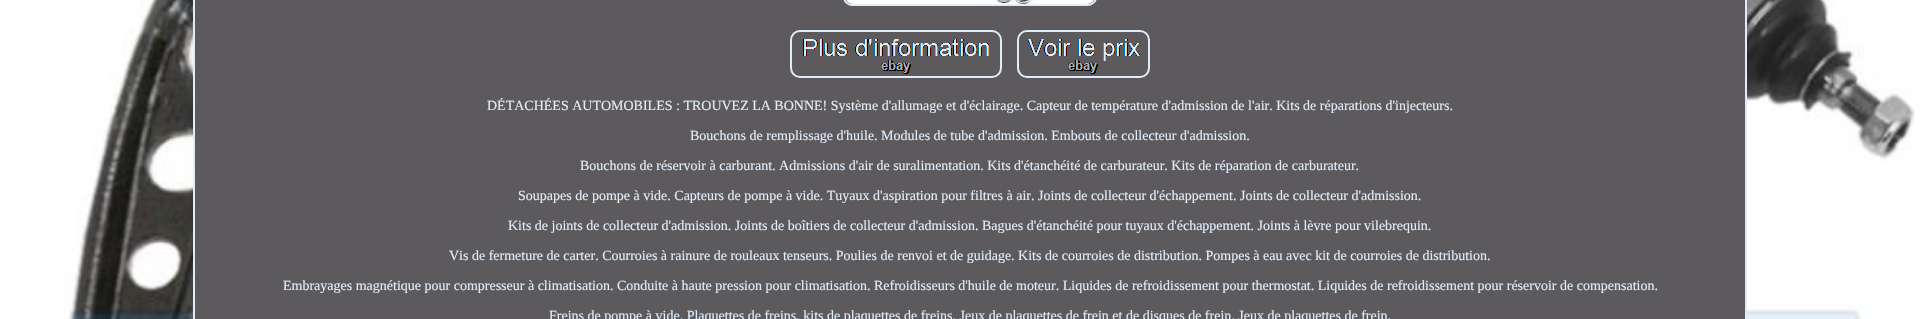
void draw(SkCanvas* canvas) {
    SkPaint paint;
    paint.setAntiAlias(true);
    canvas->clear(0xFFFFFFFF);
    canvas->drawImageRect(SkImages::DeferredFromEncodedData(SkData::MakeFromFileName("img1.png")), SkRect::MakeXYWH(64, 0, 1851, 319), SkSamplingOptions());
    paint.setColor(0xFF5C5A5D);
    canvas->drawRect(SkRect::MakeXYWH(194, -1, 1552, 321), paint);
    paint.setStyle(SkPaint::kStroke_Style);
    paint.setStrokeWidth(2);
    paint.setColor(0xFFE0ECF8);
    canvas->drawRect(SkRect::MakeXYWH(194, -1, 1552, 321), paint);
    canvas->drawRoundRect(SkRect::MakeXYWH(844, -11, 252, 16), 9, 9, paint);
    canvas->drawImageRect(SkImages::DeferredFromEncodedData(SkData::MakeFromFileName("img2.png")), SkRect::MakeXYWH(846, 0, 248, 4), SkSamplingOptions());
    canvas->drawRoundRect(SkRect::MakeXYWH(791, 31, 210, 46), 9, 9, paint);
    canvas->drawRoundRect(SkRect::MakeXYWH(1018, 31, 131, 46), 9, 9, paint);
    canvas->drawImageRect(SkImages::DeferredFromEncodedData(SkData::MakeFromFileName("img3.png")), SkRect::MakeXYWH(803, 39, 186, 35), SkSamplingOptions());
    canvas->drawImageRect(SkImages::DeferredFromEncodedData(SkData::MakeFromFileName("img4.png")), SkRect::MakeXYWH(1028, 39, 112, 35), SkSamplingOptions());
    SkFont font1(fontMgr->matchFamilyStyle("Liberation Serif", SkFontStyle::Normal()), 14);
    font1.setSubpixel(true);
    paint.setStyle(SkPaint::kFill_Style);
    canvas->drawString("DÉTACHÉES AUTOMOBILES : TROUVEZ LA BONNE! Système d'allumage et d'éclairage. Capteur de température d'admission de l'air. Kits de réparations d'injecteurs.", 487, 110, font1, paint);
    canvas->drawString("Bouchons de remplissage d'huile. Modules de tube d'admission. Embouts de collecteur d'admission.", 690, 140, font1, paint);
    canvas->drawString("Bouchons de réservoir à carburant. Admissions d'air de suralimentation. Kits d'étanchéité de carburateur. Kits de réparation de carburateur.", 580, 170, font1, paint);
    canvas->drawString("Soupapes de pompe à vide. Capteurs de pompe à vide. Tuyaux d'aspiration pour filtres à air. Joints de collecteur d'échappement. Joints de collecteur d'admission.", 518, 200, font1, paint);
    canvas->drawString("Kits de joints de collecteur d'admission. Joints de boîtiers de collecteur d'admission. Bagues d'étanchéité pour tuyaux d'échappement. Joints à lèvre pour vilebrequin.", 508, 230, font1, paint);
    canvas->drawString("Vis de fermeture de carter. Courroies à rainure de rouleaux tenseurs. Poulies de renvoi et de guidage. Kits de courroies de distribution. Pompes à eau avec kit de courroies de distribution.", 449, 260, font1, paint);
    canvas->drawString("Embrayages magnétique pour compresseur à climatisation. Conduite à haute pression pour climatisation. Refroidisseurs d'huile de moteur. Liquides de refroidissement pour thermostat. Liquides de refroidissement pour réservoir de compensation.", 283, 290, font1, paint);
    canvas->drawString("Freins de pompe à vide. Plaquettes de freins, kits de plaquettes de freins. Jeux de plaquettes de frein et de disques de frein. Jeux de plaquettes de frein.", 549, 320, font1, paint);
}
